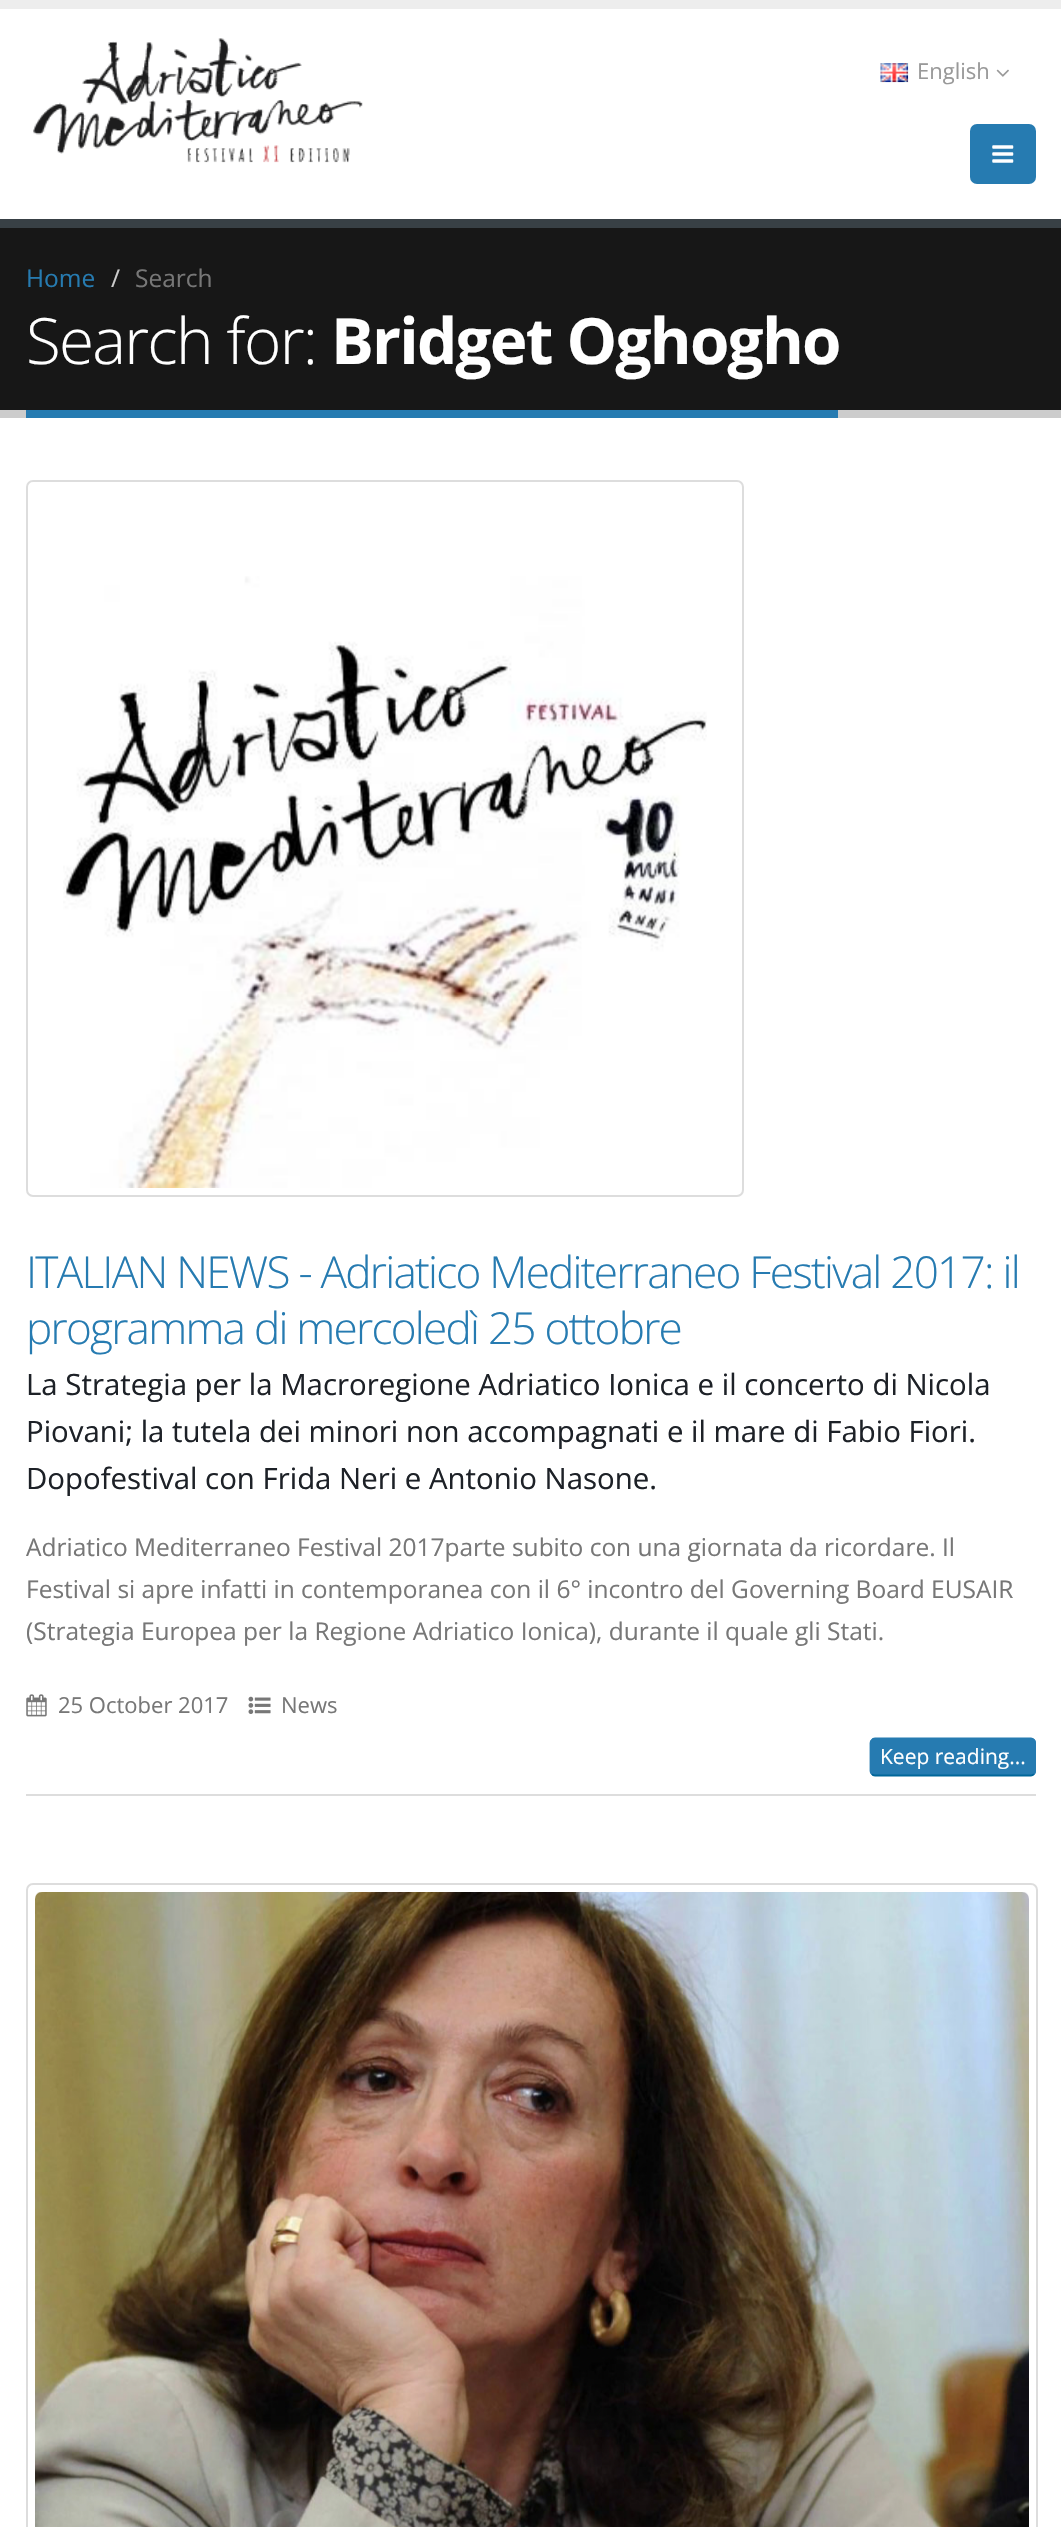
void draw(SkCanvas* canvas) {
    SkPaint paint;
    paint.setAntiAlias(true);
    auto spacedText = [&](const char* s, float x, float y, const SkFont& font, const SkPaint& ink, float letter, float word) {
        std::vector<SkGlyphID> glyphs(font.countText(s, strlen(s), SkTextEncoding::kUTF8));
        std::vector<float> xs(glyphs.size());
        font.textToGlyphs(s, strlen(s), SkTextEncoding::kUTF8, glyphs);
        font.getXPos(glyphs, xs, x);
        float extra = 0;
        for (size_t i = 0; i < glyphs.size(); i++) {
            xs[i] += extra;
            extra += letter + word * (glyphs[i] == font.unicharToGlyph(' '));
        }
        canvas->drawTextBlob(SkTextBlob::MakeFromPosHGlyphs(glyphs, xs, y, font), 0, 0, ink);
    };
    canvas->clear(0xFFFFFFFF);
    paint.setColor(0xFFEDEDED);
    canvas->drawRect(SkRect::MakeXYWH(0, 0, 1061, 9), paint);
    canvas->drawImageRect(SkImages::DeferredFromEncodedData(SkData::MakeFromFileName("img1.png")), SkRect::MakeXYWH(33, 38, 330, 125), SkSamplingOptions());
    canvas->drawImageRect(SkImages::DeferredFromEncodedData(SkData::MakeFromFileName("img2.png")), SkRect::MakeXYWH(880, 63, 29, 20), SkSamplingOptions());
    SkFont font1(fontMgr->matchFamilyStyle("Open Sans", SkFontStyle::Normal()), 22);
    font1.setSubpixel(true);
    paint.setColor(0xFF999999);
    canvas->drawString("English", 917, 79, font1, paint);
    canvas->drawImageRect(SkImages::DeferredFromEncodedData(SkData::MakeFromFileName("img3.png")), SkRect::MakeXYWH(996, 69, 13, 8), SkSamplingOptions());
    paint.setColor(0xFF267BB1);
    canvas->drawRoundRect(SkRect::MakeXYWH(970, 124, 66, 60), 7, 7, paint);
    canvas->drawImageRect(SkImages::DeferredFromEncodedData(SkData::MakeFromFileName("img4.png")), SkRect::MakeXYWH(992, 145, 22, 18), SkSamplingOptions());
    paint.setColor(0xFF171717);
    canvas->drawRect(SkRect::MakeXYWH(0, 228, 1061, 182), paint);
    paint.setColor(0xFF384045);
    canvas->drawRect(SkRect::MakeXYWH(0, 219, 1061, 9), paint);
    paint.setColor(0xFFCCCCCC);
    canvas->drawRect(SkRect::MakeXYWH(0, 410, 1061, 8), paint);
    SkFont font2(fontMgr->matchFamilyStyle("Open Sans", SkFontStyle::Normal()), 24.5f);
    font2.setSubpixel(true);
    paint.setColor(0xFF267BB1);
    canvas->drawString("Home", 26, 287, font2, paint);
    paint.setColor(0xFFCCCCCC);
    canvas->drawString("/", 111, 287, font2, paint);
    paint.setColor(0xFF777777);
    canvas->drawString("Search", 135, 287, font2, paint);
    paint.setColor(0xFF267BB1);
    canvas->drawRect(SkRect::MakeXYWH(26, 410, 812, 8), paint);
    SkFont font3(fontMgr->matchFamilyStyle("Open Sans", SkFontStyle(300, SkFontStyle::kNormal_Width, SkFontStyle::kUpright_Slant)), 63.75f);
    font3.setSubpixel(true);
    paint.setColor(0xFFFFFFFF);
    spacedText("Search for:", 26, 364, font3, paint, -1.75f, 0);
    SkFont font4(fontMgr->matchFamilyStyle("Open Sans", SkFontStyle::Bold()), 63.75f);
    font4.setSubpixel(true);
    spacedText("Bridget Oghogho", 331, 364, font4, paint, -1.75f, 0);
    paint.setColor(0xFFDDDDDD);
    canvas->drawRect(SkRect::MakeXYWH(26, 1794, 1010, 2), paint);
    paint.setStyle(SkPaint::kStroke_Style);
    paint.setStrokeWidth(2);
    canvas->drawRoundRect(SkRect::MakeXYWH(27, 481, 716, 715), 6, 6, paint);
    canvas->drawImageRect(SkImages::DeferredFromEncodedData(SkData::MakeFromFileName("img5.png")), SkRect::MakeXYWH(63, 576, 644, 612), SkSamplingOptions());
    SkFont font5(fontMgr->matchFamilyStyle("Open Sans", SkFontStyle(300, SkFontStyle::kNormal_Width, SkFontStyle::kUpright_Slant)), 44.1f);
    font5.setSubpixel(true);
    paint.setStyle(SkPaint::kFill_Style);
    paint.setColor(0xFF267BB1);
    spacedText("ITALIAN NEWS - Adriatico Mediterraneo Festival 2017: il", 26, 1288, font5, paint, -1.75f, 0);
    spacedText("programma di mercoledì 25 ottobre", 26, 1344, font5, paint, -1.75f, 0);
    SkFont font6(fontMgr->matchFamilyStyle("Open Sans", SkFontStyle::Normal()), 29.4f);
    font6.setSubpixel(true);
    paint.setColor(0xFF1D2127);
    canvas->drawString("La Strategia per la Macroregione Adriatico Ionica e il concerto di Nicola", 26, 1395, font6, paint);
    canvas->drawString("Piovani; la tutela dei minori non accompagnati e il mare di Fabio Fiori.", 26, 1442, font6, paint);
    canvas->drawString("Dopofestival con Frida Neri e Antonio Nasone.", 26, 1489, font6, paint);
    paint.setColor(0xFF777777);
    canvas->drawString("Adriatico Mediterraneo Festival 2017parte subito con una giornata da ricordare. Il", 26, 1556, font2, paint);
    canvas->drawString("Festival si apre infatti in contemporanea con il 6° incontro del Governing Board EUSAIR", 26, 1598, font2, paint);
    canvas->drawString("(Strategia Europea per la Regione Adriatico Ionica), durante il quale gli Stati.", 26, 1640, font2, paint);
    canvas->drawImageRect(SkImages::DeferredFromEncodedData(SkData::MakeFromFileName("img6.png")), SkRect::MakeXYWH(26, 1694, 21, 23), SkSamplingOptions());
    canvas->drawString("25 October 2017", 58, 1713, font1, paint);
    canvas->drawImageRect(SkImages::DeferredFromEncodedData(SkData::MakeFromFileName("img7.png")), SkRect::MakeXYWH(248, 1696, 23, 18), SkSamplingOptions());
    canvas->drawString("News", 281, 1713, font1, paint);
    paint.setColor(0xFF267BB1);
    canvas->drawRoundRect(SkRect::MakeXYWH(870, 1738, 166, 38), 5, 5, paint);
    paint.setStyle(SkPaint::kStroke_Style);
    paint.setStrokeWidth(1.8f);
    paint.setColor(0xFF006699);
    canvas->drawPath(SkPathBuilder().moveTo(1034, 1774).cubicTo(1033, 1775, 1032, 1775.5f, 1031, 1775.5f).lineTo(875, 1775.5f).cubicTo(874, 1775.5f, 872.5f, 1775, 872, 1774).detach(), paint);
    paint.setColor(0xFF267BB1);
    canvas->drawPath(SkPathBuilder().moveTo(872, 1774).cubicTo(871, 1773.5f, 870.5f, 1772, 870.5f, 1771).lineTo(870.5f, 1743).cubicTo(870.5f, 1742, 871, 1740.5f, 872, 1740).cubicTo(872.5f, 1739, 874, 1738.5f, 875, 1738.5f).lineTo(1031, 1738.5f).cubicTo(1032, 1738.5f, 1033, 1739, 1034, 1740).cubicTo(1034.5f, 1740.5f, 1035, 1742, 1035, 1743).lineTo(1035, 1771).cubicTo(1035, 1772, 1034.5f, 1773.5f, 1034, 1774).detach(), paint);
    SkFont font7(fontMgr->matchFamilyStyle("Open Sans", SkFontStyle::Normal()), 21);
    font7.setSubpixel(true);
    paint.setStyle(SkPaint::kFill_Style);
    paint.setColor(0xFFFFFFFF);
    canvas->drawString("Keep reading...", 880, 1764, font7, paint);
    paint.setStyle(SkPaint::kStroke_Style);
    paint.setStrokeWidth(2);
    paint.setColor(0xFFDDDDDD);
    canvas->drawRoundRect(SkRect::MakeXYWH(27, 1884, 1010, 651), 6, 6, paint);
    canvas->drawImageRect(SkImages::DeferredFromEncodedData(SkData::MakeFromFileName("img8.png")), SkRect::MakeXYWH(35, 1892, 994, 635), SkSamplingOptions());
}
